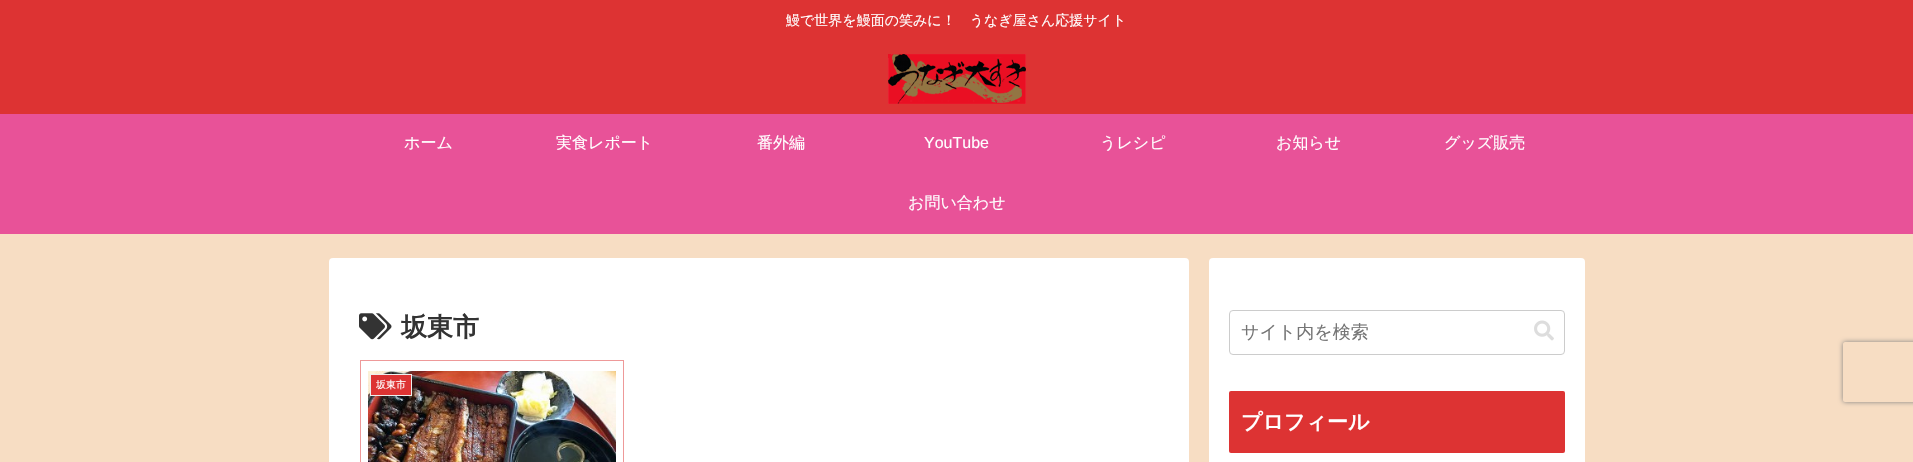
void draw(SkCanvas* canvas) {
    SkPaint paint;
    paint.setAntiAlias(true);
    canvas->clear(0xFFF7DDC3);
    paint.setColor(0xFFDD3333);
    canvas->drawRect(SkRect::MakeXYWH(0, 0, 1913, 114), paint);
    SkFont font1(fontMgr->matchFamilyStyle("WenQuanYi Zen Hei", SkFontStyle(500, SkFontStyle::kNormal_Width, SkFontStyle::kUpright_Slant)), 14);
    font1.setSubpixel(true);
    paint.setColor(0xFFFFFFFF);
    canvas->drawString("鰻で世界を鰻面の笑みに！　うなぎ屋さん応援サイト", 786, 25, font1, paint);
    canvas->drawImageRect(SkImages::DeferredFromEncodedData(SkData::MakeFromFileName("img1.png")), SkRect::MakeXYWH(888, 54, 138, 50), SkSamplingOptions());
    paint.setColor(0xFFE85298);
    canvas->drawRect(SkRect::MakeXYWH(0, 114, 1913, 120), paint);
    SkFont font2(fontMgr->matchFamilyStyle("WenQuanYi Zen Hei", SkFontStyle(500, SkFontStyle::kNormal_Width, SkFontStyle::kUpright_Slant)), 16);
    font2.setSubpixel(true);
    paint.setColor(0xFFFFFFFF);
    canvas->drawString("ホーム", 404, 148, font2, paint);
    canvas->drawString("実食レポート", 556, 148, font2, paint);
    canvas->drawString("番外編", 757, 148, font2, paint);
    SkFont font3(fontMgr->matchFamilyStyle("Liberation Sans", SkFontStyle::Normal()), 16);
    font3.setSubpixel(true);
    canvas->drawString("YouTube", 924, 148, font3, paint);
    canvas->drawString("うレシピ", 1100, 148, font2, paint);
    canvas->drawString("お知らせ", 1276, 148, font2, paint);
    canvas->drawString("グッズ販売", 1444, 148, font2, paint);
    canvas->drawString("お問い合わせ", 908, 208, font2, paint);
    canvas->drawRoundRect(SkRect::MakeXYWH(329, 258, 860, 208), 4, 4, paint);
    canvas->drawImageRect(SkImages::DeferredFromEncodedData(SkData::MakeFromFileName("img2.png")), SkRect::MakeXYWH(359, 313, 33, 27), SkSamplingOptions());
    SkFont font4(fontMgr->matchFamilyStyle("WenQuanYi Zen Hei", SkFontStyle::Bold()), 26);
    font4.setSubpixel(true);
    paint.setColor(0xFF333333);
    canvas->drawString("坂東市", 401, 336, font4, paint);
    paint.setStyle(SkPaint::kStroke_Style);
    paint.setStrokeWidth(1);
    paint.setColor(0xFFEE9999);
    canvas->drawRect(SkRect::MakeXYWH(360.5f, 360.5f, 263, 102), paint);
    canvas->drawImageRect(SkImages::DeferredFromEncodedData(SkData::MakeFromFileName("img3.png")), SkRect::MakeXYWH(368, 371, 248, 91), SkSamplingOptions());
    paint.setStyle(SkPaint::kFill_Style);
    paint.setColor(0xFFDD3333);
    canvas->drawRect(SkRect::MakeXYWH(370.5f, 374.5f, 41, 21), paint);
    paint.setStyle(SkPaint::kStroke_Style);
    paint.setColor(0xFFEEEEEE);
    canvas->drawRect(SkRect::MakeXYWH(370.5f, 374.5f, 41, 21), paint);
    SkFont font5(fontMgr->matchFamilyStyle("WenQuanYi Zen Hei", SkFontStyle(500, SkFontStyle::kNormal_Width, SkFontStyle::kUpright_Slant)), 10);
    font5.setSubpixel(true);
    paint.setStyle(SkPaint::kFill_Style);
    paint.setColor(0xFFFFFFFF);
    canvas->drawString("坂東市", 376, 388, font5, paint);
    canvas->drawRoundRect(SkRect::MakeXYWH(1209, 258, 376, 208), 4, 4, paint);
    paint.setStyle(SkPaint::kStroke_Style);
    paint.setColor(0xFFCCCCCC);
    canvas->drawRoundRect(SkRect::MakeXYWH(1229.5f, 310.5f, 335, 44), 3.5f, 3.5f, paint);
    SkFont font6(fontMgr->matchFamilyStyle("WenQuanYi Zen Hei", SkFontStyle(500, SkFontStyle::kNormal_Width, SkFontStyle::kUpright_Slant)), 18);
    font6.setSubpixel(true);
    paint.setStyle(SkPaint::kFill_Style);
    paint.setColor(0xFF757575);
    canvas->drawString("サイト内を検索", 1241, 338, font6, paint);
    canvas->drawImageRect(SkImages::DeferredFromEncodedData(SkData::MakeFromFileName("img4.png")), SkRect::MakeXYWH(1534, 320, 20, 21), SkSamplingOptions());
    paint.setColor(0xFFDD3333);
    canvas->drawRoundRect(SkRect::MakeXYWH(1229, 391, 336, 62), 2, 2, paint);
    SkFont font7(fontMgr->matchFamilyStyle("WenQuanYi Zen Hei", SkFontStyle::Bold()), 21);
    font7.setSubpixel(true);
    paint.setColor(0xFFFFFFFF);
    canvas->drawString("プロフィール", 1241, 429, font7, paint);
    canvas->save();
    canvas->clipPath(SkPathBuilder(SkPathFillType::kEvenOdd).moveTo(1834, 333).lineTo(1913, 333).lineTo(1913, 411).lineTo(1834, 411).close().moveTo(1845, 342).lineTo(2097, 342).cubicTo(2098, 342, 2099, 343, 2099, 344).lineTo(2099, 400).cubicTo(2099, 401, 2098, 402, 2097, 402).lineTo(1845, 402).cubicTo(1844, 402, 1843, 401, 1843, 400).lineTo(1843, 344).cubicTo(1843, 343, 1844, 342, 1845, 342).close().detach(), true);
    paint.setColor(0xFF808080);
    paint.setMaskFilter(SkMaskFilter::MakeBlur(kNormal_SkBlurStyle, 2.5f));
    canvas->drawRoundRect(SkRect::MakeXYWH(1843, 342, 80, 60), 2, 2, paint);
    paint.setMaskFilter(nullptr);
    canvas->restore();
}
